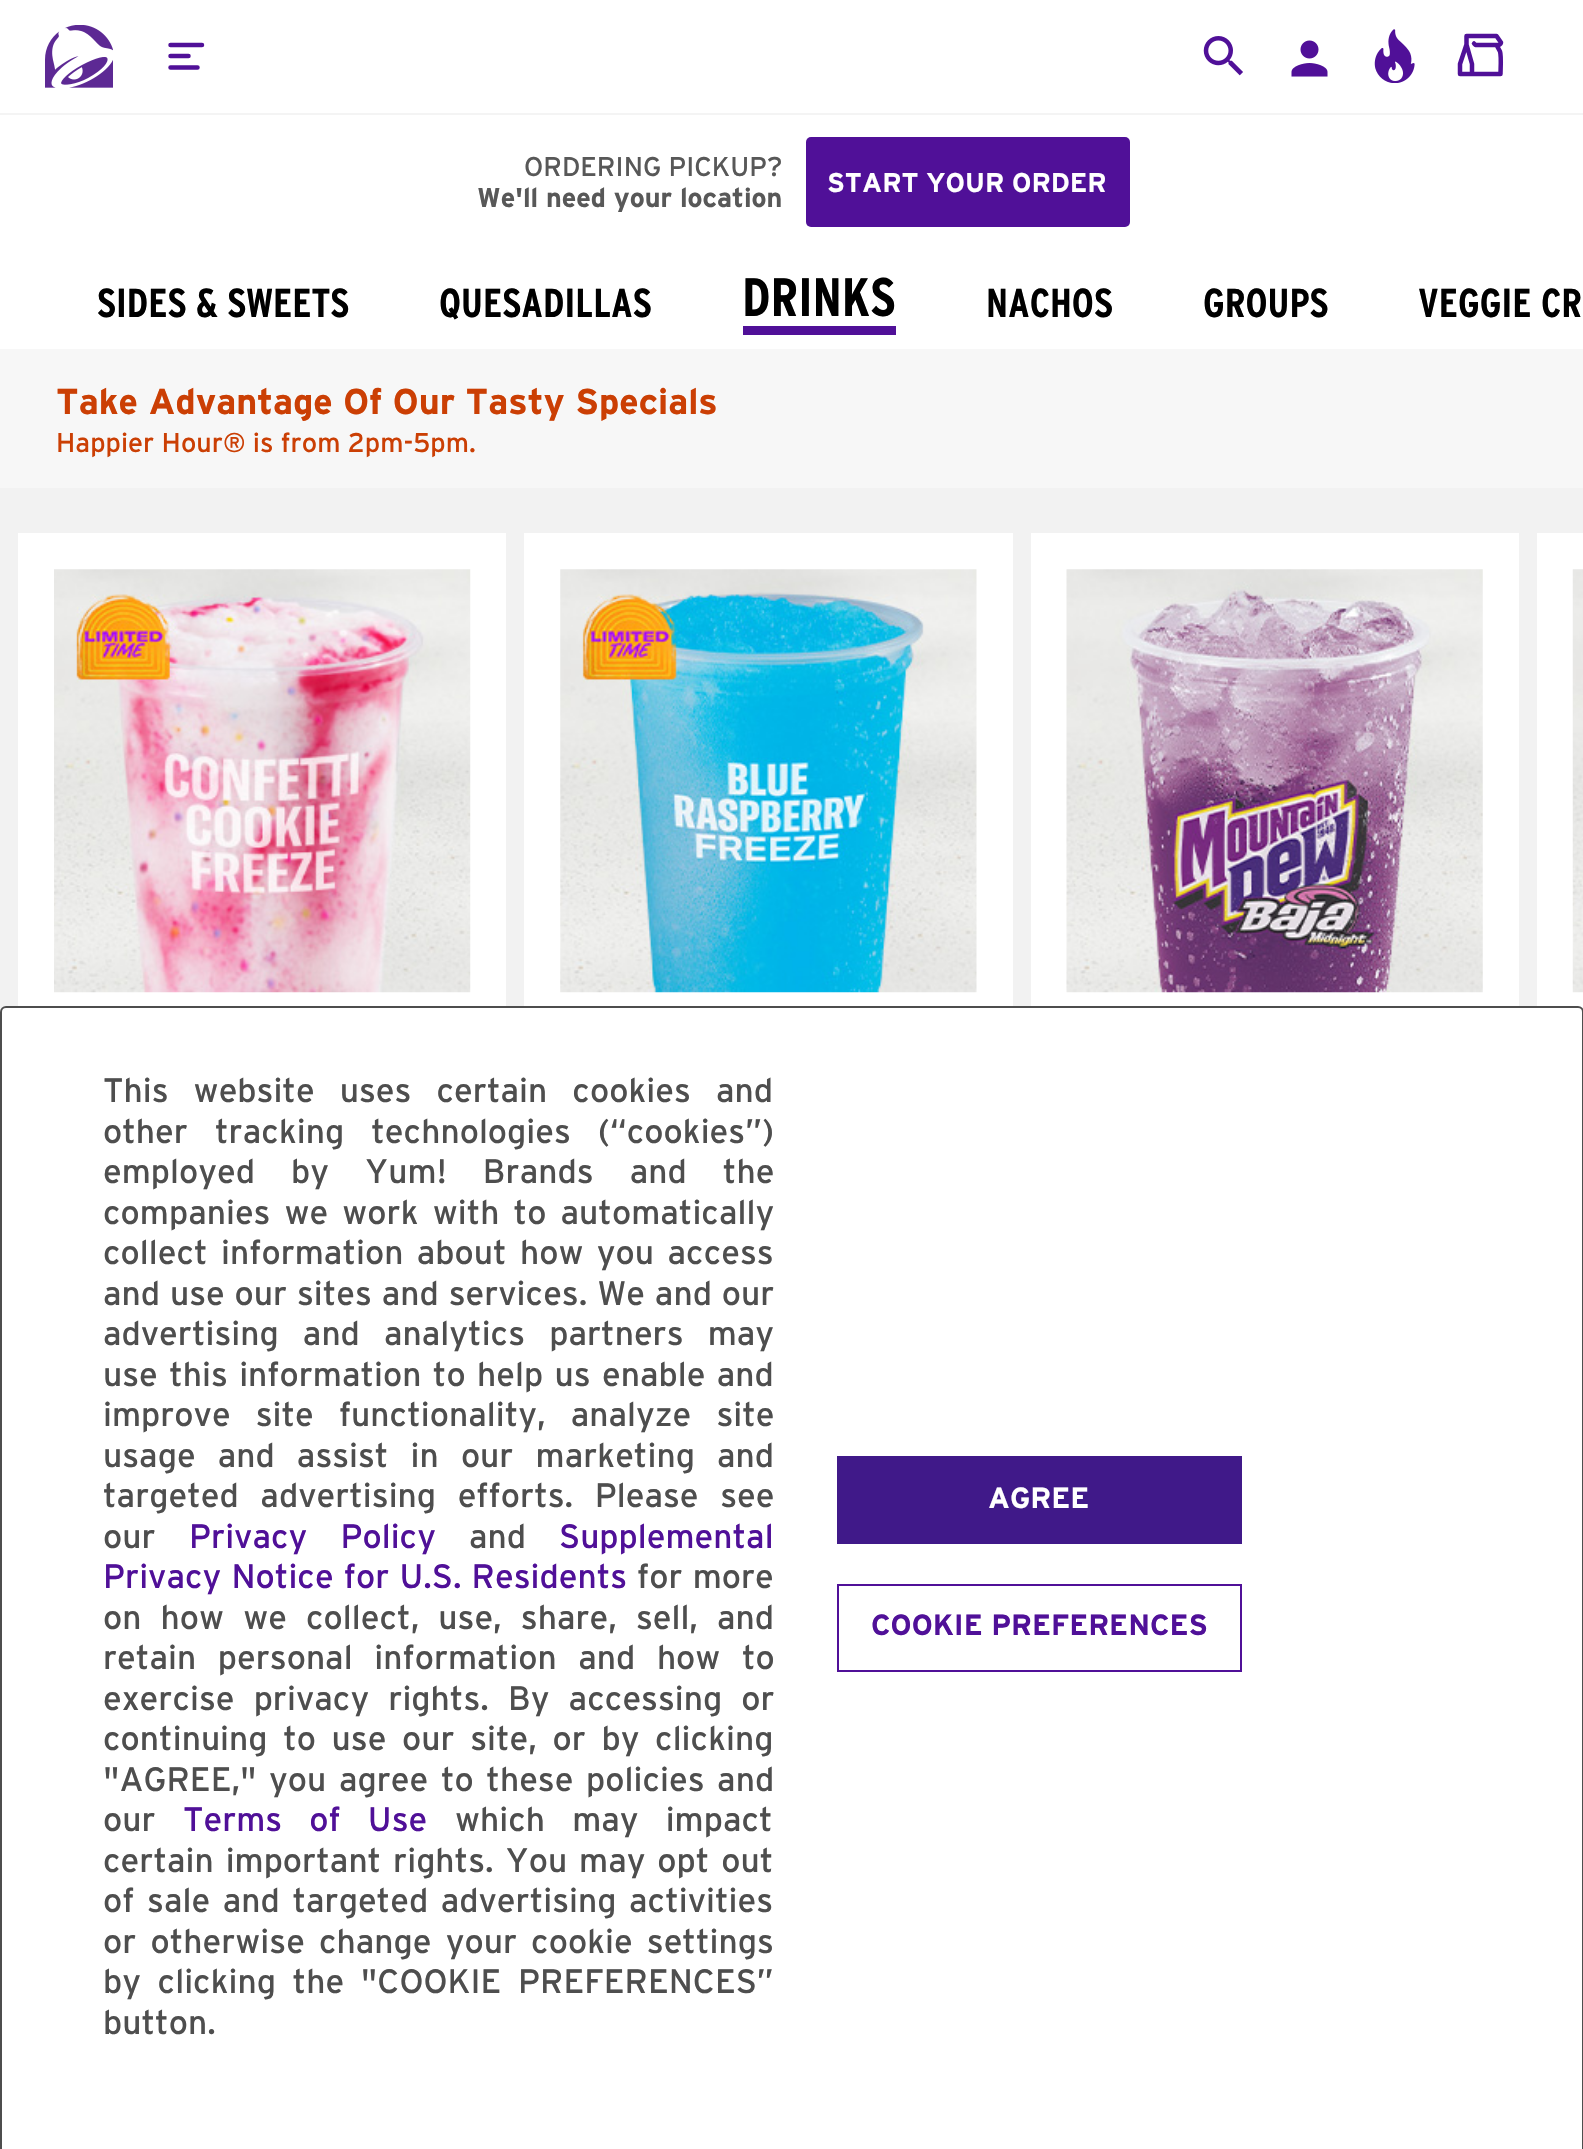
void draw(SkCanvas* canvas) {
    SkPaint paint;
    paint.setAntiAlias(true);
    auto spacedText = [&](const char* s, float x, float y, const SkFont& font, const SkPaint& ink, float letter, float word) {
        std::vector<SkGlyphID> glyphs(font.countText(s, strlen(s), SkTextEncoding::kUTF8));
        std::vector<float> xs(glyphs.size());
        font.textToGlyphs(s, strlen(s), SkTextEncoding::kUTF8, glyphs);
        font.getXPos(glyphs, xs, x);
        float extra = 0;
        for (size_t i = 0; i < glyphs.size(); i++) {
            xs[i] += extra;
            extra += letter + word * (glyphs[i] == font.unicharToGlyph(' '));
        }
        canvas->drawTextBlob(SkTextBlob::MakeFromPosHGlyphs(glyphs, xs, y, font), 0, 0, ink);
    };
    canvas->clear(0xFFFFFFFF);
    paint.setColor(0xFFF4F4F4);
    canvas->drawRect(SkRect::MakeXYWH(0, 113, 1583, 2), paint);
    canvas->drawImageRect(SkImages::DeferredFromEncodedData(SkData::MakeFromFileName("img1.png")), SkRect::MakeXYWH(45, 25, 68, 63), SkSamplingOptions());
    paint.setStyle(SkPaint::kStroke_Style);
    paint.setStrokeWidth(4.5f);
    paint.setStrokeCap(SkPaint::kRound_Cap);
    paint.setColor(0xFF501098);
    canvas->drawPath(SkPathBuilder().moveTo(170.5f, 45).lineTo(202, 45).moveTo(170.5f, 56).lineTo(188.5f, 56).moveTo(170.5f, 67.5f).lineTo(197.5f, 67.5f).detach(), paint);
    canvas->drawImageRect(SkImages::DeferredFromEncodedData(SkData::MakeFromFileName("img2.png")), SkRect::MakeXYWH(1203, 36, 40, 40), SkSamplingOptions());
    canvas->drawImageRect(SkImages::DeferredFromEncodedData(SkData::MakeFromFileName("img3.png")), SkRect::MakeXYWH(1291, 40, 37, 37), SkSamplingOptions());
    canvas->drawImageRect(SkImages::DeferredFromEncodedData(SkData::MakeFromFileName("img4.png")), SkRect::MakeXYWH(1374, 29, 41, 54), SkSamplingOptions());
    paint.setStrokeJoin(SkPaint::kRound_Join);
    canvas->drawPath(SkPathBuilder().moveTo(1466.5f, 44.5f).lineTo(1460, 64).lineTo(1460, 74).lineTo(1472, 74).moveTo(1466.5f, 44.5f).lineTo(1466.5f, 36).lineTo(1496.5f, 36).lineTo(1501, 42.5f).cubicTo(1501, 43.5f, 1500, 44.5f, 1499, 45).lineTo(1475.5f, 45).lineTo(1474, 43.5f).moveTo(1466.5f, 44.5f).lineTo(1472, 64).lineTo(1472, 74).moveTo(1472, 74).lineTo(1500.5f, 74).cubicTo(1500.5f, 69, 1501.5f, 56, 1500, 51.5f).lineTo(1496.5f, 45).detach(), paint);
    SkFont font1(fontMgr->matchFamilyStyle("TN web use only", SkFontStyle::Normal()), 27);
    font1.setSubpixel(true);
    paint.setStyle(SkPaint::kFill_Style);
    paint.setColor(0xFF585858);
    canvas->drawString("ORDERING PICKUP?", 524, 176, font1, paint);
    SkFont font2(fontMgr->matchFamilyStyle("TN web use only", SkFontStyle::Bold()), 27);
    font2.setSubpixel(true);
    canvas->drawString("We'll need your location", 477, 207, font2, paint);
    paint.setColor(0xFF501098);
    canvas->drawRoundRect(SkRect::MakeXYWH(806, 137, 324, 90), 5, 5, paint);
    paint.setColor(0xFFFFFFFF);
    canvas->drawString("START YOUR ORDER", 827, 192, font2, paint);
    SkFont font3(fontMgr->matchFamilyStyle("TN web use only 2", SkFontStyle::Bold()), 40.5f);
    font3.setSubpixel(true);
    paint.setColor(0xFF000000);
    canvas->drawString("SIDES & SWEETS", 97, 317, font3, paint);
    canvas->drawString("QUESADILLAS", 439, 317, font3, paint);
    paint.setColor(0xFF501098);
    canvas->drawRect(SkRect::MakeXYWH(743, 326, 153, 9), paint);
    SkFont font4(fontMgr->matchFamilyStyle("TN web use only 2", SkFontStyle::Bold()), 54);
    font4.setSubpixel(true);
    paint.setColor(0xFF000000);
    canvas->drawString("DRINKS", 742, 316, font4, paint);
    canvas->drawString("NACHOS", 986, 317, font3, paint);
    canvas->drawString("GROUPS", 1203, 317, font3, paint);
    canvas->drawString("VEGGIE CR", 1418, 317, font3, paint);
    paint.setColor(0xFFF7F7F7);
    canvas->drawRect(SkRect::MakeXYWH(0, 349, 1583, 139), paint);
    SkFont font5(fontMgr->matchFamilyStyle("TN web use only", SkFontStyle::Bold()), 36);
    font5.setSubpixel(true);
    paint.setColor(0xFFCB3F04);
    canvas->drawString("Take Advantage Of Our Tasty Specials", 56, 414, font5, paint);
    canvas->drawString("Happier Hour® is from 2pm-5pm.", 56, 452, font1, paint);
    paint.setColor(0xFFF2F2F2);
    canvas->drawRect(SkRect::MakeXYWH(0, 488, 1583, 524), paint);
    paint.setColor(0xFFFFFFFF);
    canvas->drawRect(SkRect::MakeXYWH(18, 533, 488, 473), paint);
    canvas->drawImageRect(SkImages::DeferredFromEncodedData(SkData::MakeFromFileName("img5.png")), SkRect::MakeXYWH(54, 569, 417, 424), SkSamplingOptions());
    canvas->drawRect(SkRect::MakeXYWH(524, 533, 489, 473), paint);
    canvas->drawImageRect(SkImages::DeferredFromEncodedData(SkData::MakeFromFileName("img6.png")), SkRect::MakeXYWH(560, 569, 417, 424), SkSamplingOptions());
    canvas->drawRect(SkRect::MakeXYWH(1031, 533, 488, 473), paint);
    canvas->drawImageRect(SkImages::DeferredFromEncodedData(SkData::MakeFromFileName("img7.png")), SkRect::MakeXYWH(1066, 569, 417, 424), SkSamplingOptions());
    canvas->drawRect(SkRect::MakeXYWH(1537, 533, 46, 476), paint);
    canvas->drawImageRect(SkImages::DeferredFromEncodedData(SkData::MakeFromFileName("img8.png")), SkRect::MakeXYWH(1572, 569, 11, 424), SkSamplingOptions());
    canvas->drawRoundRect(SkRect::MakeXYWH(1, 1007, 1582, 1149), 5, 5, paint);
    paint.setStyle(SkPaint::kStroke_Style);
    paint.setStrokeWidth(2);
    paint.setStrokeCap(SkPaint::kButt_Cap);
    paint.setStrokeJoin(SkPaint::kMiter_Join);
    paint.setColor(0xFF4E4E4E);
    canvas->drawRoundRect(SkRect::MakeXYWH(1, 1007, 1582, 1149), 5, 5, paint);
    SkFont font6(fontMgr->matchFamilyStyle("TN web use only", SkFontStyle::Normal()), 33.75f);
    font6.setSubpixel(true);
    paint.setStyle(SkPaint::kFill_Style);
    spacedText("This website uses certain cookies and", 103, 1102, font6, paint, 0, 16);
    spacedText("other tracking technologies (“cookies”)", 103, 1143, font6, paint, 0, 18);
    spacedText("employed by Yum! Brands and the", 103, 1183, font6, paint, 0, 27);
    spacedText("companies we work with to automatically", 103, 1224, font6, paint, 0, 5);
    spacedText("collect information about how you access", 103, 1264, font6, paint, 0, 4.25f);
    spacedText("and use our sites and services. We and our", 103, 1305, font6, paint, 0, 0.75f);
    spacedText("advertising and analytics partners may", 103, 1345, font6, paint, 0, 15);
    spacedText("use this information to help us enable and", 103, 1386, font6, paint, 0, 2.25f);
    spacedText("improve site functionality, analyze site", 103, 1426, font6, paint, 0, 16);
    spacedText("usage and assist in our marketing and", 103, 1467, font6, paint, 0, 13);
    spacedText("targeted advertising efforts. Please see", 103, 1507, font6, paint, 0, 12.5f);
    canvas->drawString("our", 103, 1548, font6, paint);
    paint.setColor(0xFF501098);
    spacedText("Privacy Policy", 189, 1548, font6, paint, 0, 24);
    paint.setColor(0xFF4E4E4E);
    canvas->drawString("and", 469, 1548, font6, paint);
    paint.setColor(0xFF501098);
    canvas->drawString("Supplemental", 559, 1548, font6, paint);
    spacedText("Privacy Notice for U.S. Residents", 103, 1588, font6, paint, 0, 1);
    paint.setColor(0xFF4E4E4E);
    spacedText("for more", 637, 1588, font6, paint, 0, 1);
    spacedText("on how we collect, use, share, sell, and", 103, 1629, font6, paint, 0, 10);
    spacedText("retain personal information and how to", 103, 1669, font6, paint, 0, 12.5f);
    spacedText("exercise privacy rights. By accessing or", 103, 1710, font6, paint, 0, 10);
    spacedText("continuing to use our site, or by clicking", 103, 1750, font6, paint, 0, 6.5f);
    spacedText("\"AGREE,\" you agree to these policies and", 103, 1791, font6, paint, 0, 3.5f);
    canvas->drawString("our", 103, 1831, font6, paint);
    paint.setColor(0xFF501098);
    spacedText("Terms of Use", 183, 1831, font6, paint, 0, 18);
    paint.setColor(0xFF4E4E4E);
    spacedText("which may impact", 455, 1831, font6, paint, 0, 18);
    spacedText("certain important rights. You may opt out", 103, 1872, font6, paint, 0, 2.75f);
    spacedText("of sale and targeted advertising activities", 103, 1912, font6, paint, 0, 3.5f);
    spacedText("or otherwise change your cookie settings", 103, 1953, font6, paint, 0, 5);
    spacedText("by clicking the \"COOKIE PREFERENCES”", 103, 1993, font6, paint, 0, 7.5f);
    canvas->drawString("button.", 103, 2034, font6, paint);
    paint.setColor(0xFF401989);
    canvas->drawRect(SkRect::MakeXYWH(837, 1456, 405, 88), paint);
    SkFont font7(fontMgr->matchFamilyStyle("TN web use only", SkFontStyle::Bold()), 29.25f);
    font7.setSubpixel(true);
    paint.setColor(0xFFFFFFFF);
    canvas->drawString("AGREE", 988, 1508, font7, paint);
    paint.setStyle(SkPaint::kStroke_Style);
    paint.setColor(0xFF501098);
    canvas->drawRect(SkRect::MakeXYWH(838, 1585, 403, 86), paint);
    paint.setStyle(SkPaint::kFill_Style);
    canvas->drawString("COOKIE PREFERENCES", 871, 1635, font7, paint);
}
